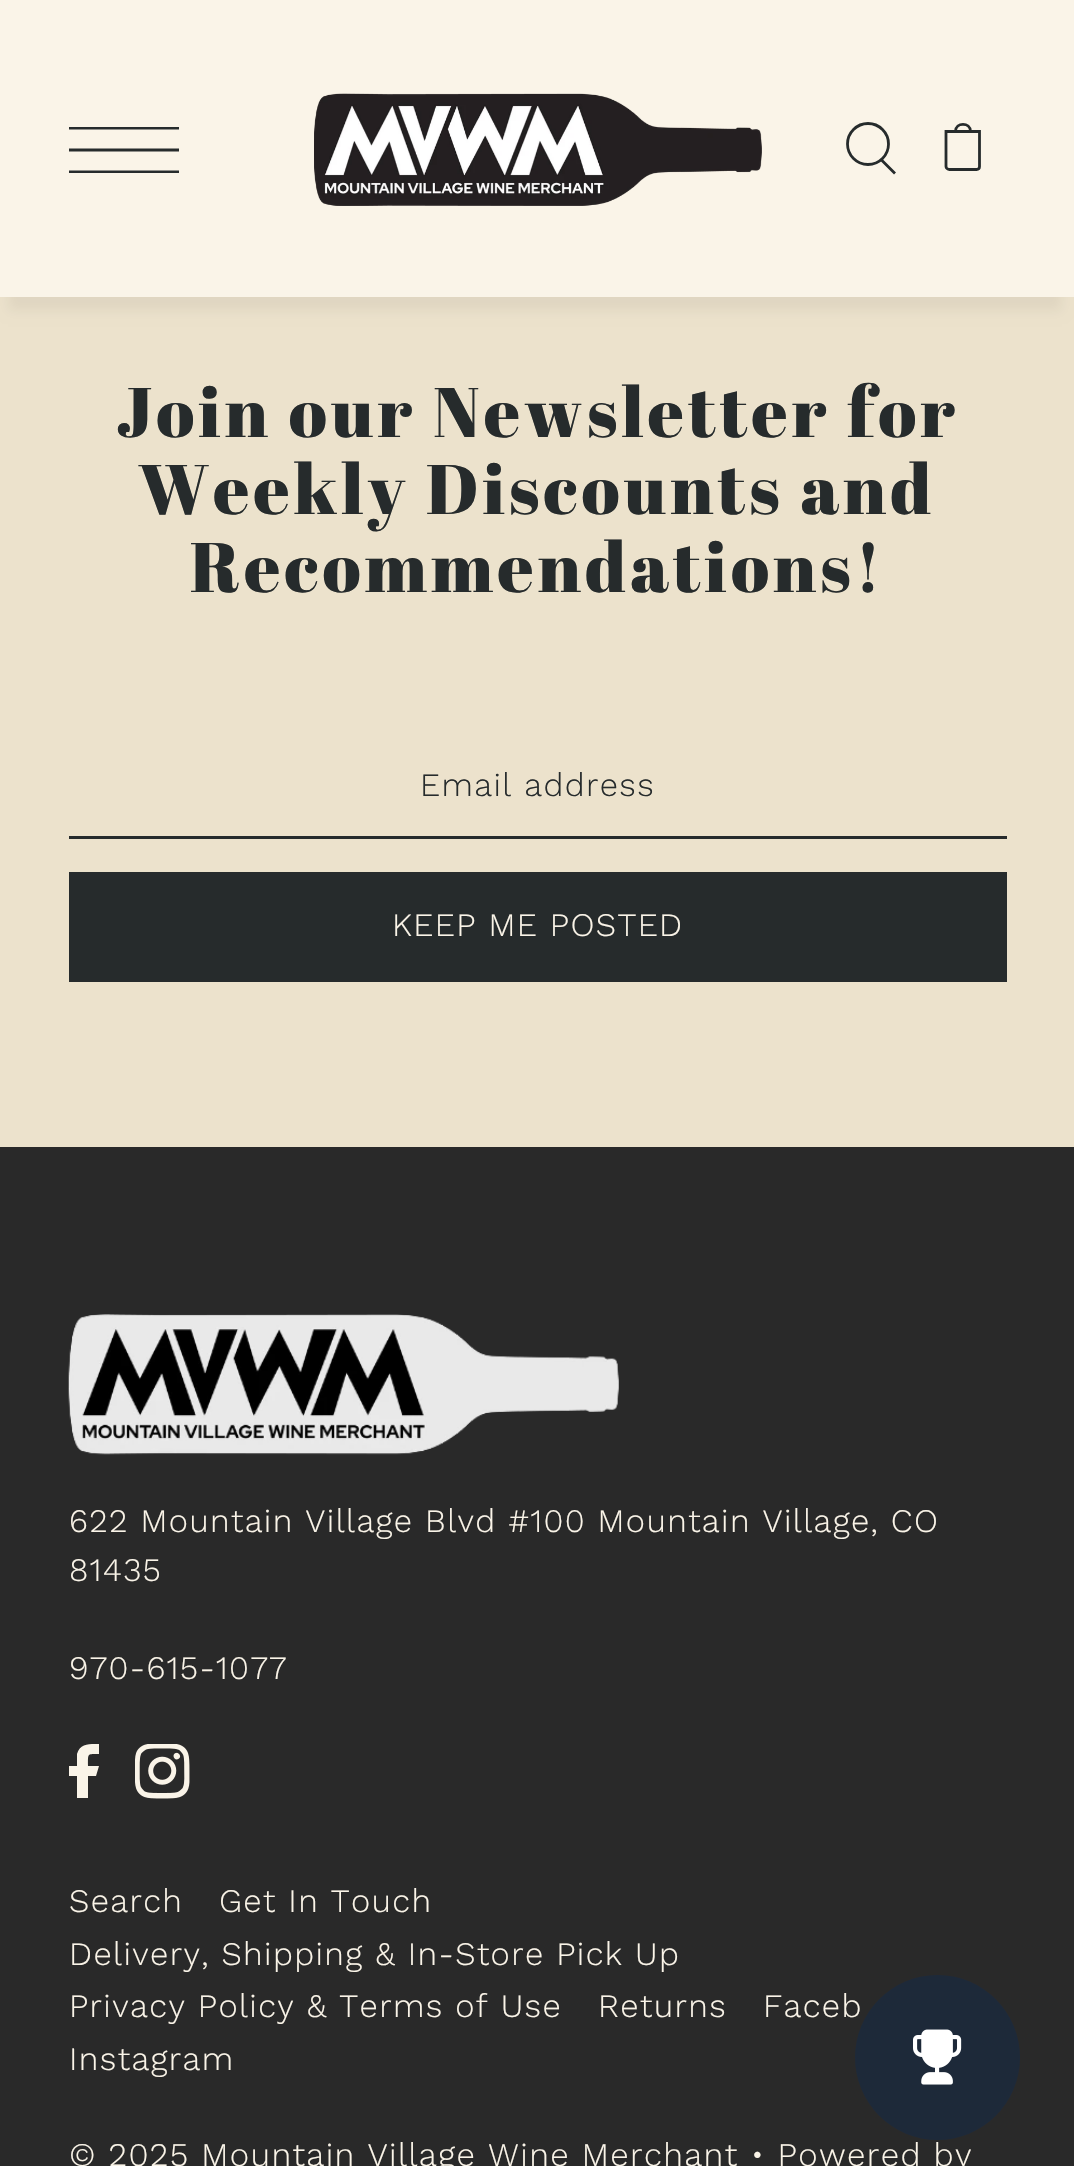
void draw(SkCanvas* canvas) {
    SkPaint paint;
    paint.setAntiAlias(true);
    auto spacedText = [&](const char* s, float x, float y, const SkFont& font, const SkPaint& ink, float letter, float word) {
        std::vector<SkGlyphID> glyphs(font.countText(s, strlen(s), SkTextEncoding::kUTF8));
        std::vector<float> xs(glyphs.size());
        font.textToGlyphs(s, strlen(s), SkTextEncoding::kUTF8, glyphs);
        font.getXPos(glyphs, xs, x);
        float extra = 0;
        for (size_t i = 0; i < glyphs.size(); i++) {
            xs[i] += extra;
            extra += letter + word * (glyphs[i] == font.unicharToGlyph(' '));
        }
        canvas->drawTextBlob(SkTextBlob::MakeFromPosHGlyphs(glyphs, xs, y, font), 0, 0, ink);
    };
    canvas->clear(0xFFECE2CC);
    paint.setColor(0x0D000000);
    paint.setMaskFilter(SkMaskFilter::MakeBlur(kNormal_SkBlurStyle, 5.5f));
    canvas->drawRect(SkRect::MakeXYWH(8, 36, 1054, 275), paint);
    paint.setMaskFilter(nullptr);
    paint.setColor(0xFFFAF4E8);
    canvas->drawRect(SkRect::MakeXYWH(0, 0, 1074, 297), paint);
    canvas->save();
    canvas->clipRect(SkRect::MakeXYWH(69, 127, 110, 46));
    paint.setStyle(SkPaint::kStroke_Style);
    paint.setStrokeWidth(2.8f);
    paint.setColor(0xFF262B2C);
    canvas->drawPath(SkPathBuilder().moveTo(68.5f, 128).lineTo(179, 128).detach(), paint);
    canvas->drawPath(SkPathBuilder().moveTo(68.5f, 150).lineTo(179, 150).detach(), paint);
    canvas->drawPath(SkPathBuilder().moveTo(68.5f, 172).lineTo(179, 172).detach(), paint);
    canvas->restore();
    canvas->drawImageRect(SkImages::DeferredFromEncodedData(SkData::MakeFromFileName("img1.png")), SkRect::MakeXYWH(314, 93, 448, 113), SkSamplingOptions());
    canvas->drawCircle(868, 144, 20.5f, paint);
    paint.setStrokeCap(SkPaint::kSquare_Cap);
    canvas->drawPath(SkPathBuilder().moveTo(881.5f, 160).lineTo(895, 173.5f).close().detach(), paint);
    paint.setStrokeCap(SkPaint::kButt_Cap);
    canvas->drawPath(SkPathBuilder().moveTo(955.5f, 131.5f).cubicTo(955.5f, 122, 970.5f, 122, 970.5f, 131.5f).moveTo(946, 131.5f).lineTo(946, 166.5f).cubicTo(946, 168, 947.5f, 169.5f, 949.5f, 169.5f).lineTo(976.5f, 169.5f).cubicTo(978.5f, 169.5f, 979.5f, 168, 979.5f, 166.5f).lineTo(979.5f, 131.5f).close().detach(), paint);
    SkFont font1(fontMgr->matchFamilyStyle("Abril Fatface", SkFontStyle::Normal()), 70.1f);
    font1.setSubpixel(true);
    paint.setStyle(SkPaint::kFill_Style);
    spacedText("Join our Newsletter for", 116, 437, font1, paint, 4.1f, 0);
    spacedText("Weekly Discounts and", 138, 514, font1, paint, 4.1f, 0);
    spacedText("Recommendations!", 190, 592, font1, paint, 4.1f, 0);
    canvas->drawRect(SkRect::MakeXYWH(69, 836, 938, 3), paint);
    SkFont font2(fontMgr->matchFamilyStyle("Work Sans", SkFontStyle(300, SkFontStyle::kNormal_Width, SkFontStyle::kUpright_Slant)), 32.75f);
    font2.setSubpixel(true);
    spacedText("Email address", 420, 796, font2, paint, 1.38f, 0);
    canvas->drawRect(SkRect::MakeXYWH(69, 872, 938, 110), paint);
    paint.setColor(0xFFFAF4E8);
    spacedText("KEEP ME POSTED", 392, 936, font2, paint, 1.38f, 0);
    paint.setColor(0xFF292929);
    canvas->drawRect(SkRect::MakeXYWH(0, 1147, 1074, 1019), paint);
    canvas->drawImageRect(SkImages::DeferredFromEncodedData(SkData::MakeFromFileName("img2.png")), SkRect::MakeXYWH(68, 1314, 551, 141), SkSamplingOptions());
    paint.setColor(0xFFFAF4E8);
    spacedText("622 Mountain Village Blvd #100 Mountain Village, CO", 69, 1532, font2, paint, 1.38f, 0);
    spacedText("81435", 69, 1581, font2, paint, 1.38f, 0);
    spacedText("970-615-1077", 69, 1679, font2, paint, 1.38f, 0);
    canvas->drawPath(SkPathBuilder().moveTo(99, 1744).cubicTo(90, 1744, 80, 1743, 77, 1754).lineTo(77, 1766).lineTo(69, 1766).lineTo(69, 1776).lineTo(77, 1776).lineTo(77, 1798).lineTo(88, 1798).lineTo(88, 1776).lineTo(96, 1776).lineTo(99, 1766).lineTo(88, 1766).cubicTo(88, 1753, 87, 1754, 99, 1754).close().detach(), paint);
    canvas->drawImageRect(SkImages::DeferredFromEncodedData(SkData::MakeFromFileName("img3.png")), SkRect::MakeXYWH(135, 1744, 55, 55), SkSamplingOptions());
    spacedText("Search", 69, 1912, font2, paint, 1.38f, 0);
    spacedText("Get In Touch", 219, 1912, font2, paint, 1.38f, 0);
    spacedText("Delivery, Shipping & In-Store Pick Up", 69, 1965, font2, paint, 1.38f, 0);
    spacedText("Privacy Policy & Terms of Use", 69, 2017, font2, paint, 1.38f, 0);
    spacedText("Returns", 598, 2017, font2, paint, 1.38f, 0);
    spacedText("Faceb", 763, 2017, font2, paint, 1.38f, 0);
    spacedText("Instagram", 69, 2070, font2, paint, 1.38f, 0);
    SkFont font3(fontMgr->matchFamilyStyle("Work Sans", SkFontStyle(300, SkFontStyle::kNormal_Width, SkFontStyle::kUpright_Slant)), 33);
    font3.setSubpixel(true);
    spacedText("© 2025 Mountain Village Wine Merchant • Powered by", 69, 2166, font3, paint, 1.38f, 0);
    paint.setColor(0xFF1D2939);
    canvas->drawCircle(937.5f, 2057.5f, 82.5f, paint);
    canvas->drawImageRect(SkImages::DeferredFromEncodedData(SkData::MakeFromFileName("img4.png")), SkRect::MakeXYWH(913, 2029, 49, 56), SkSamplingOptions());
}
